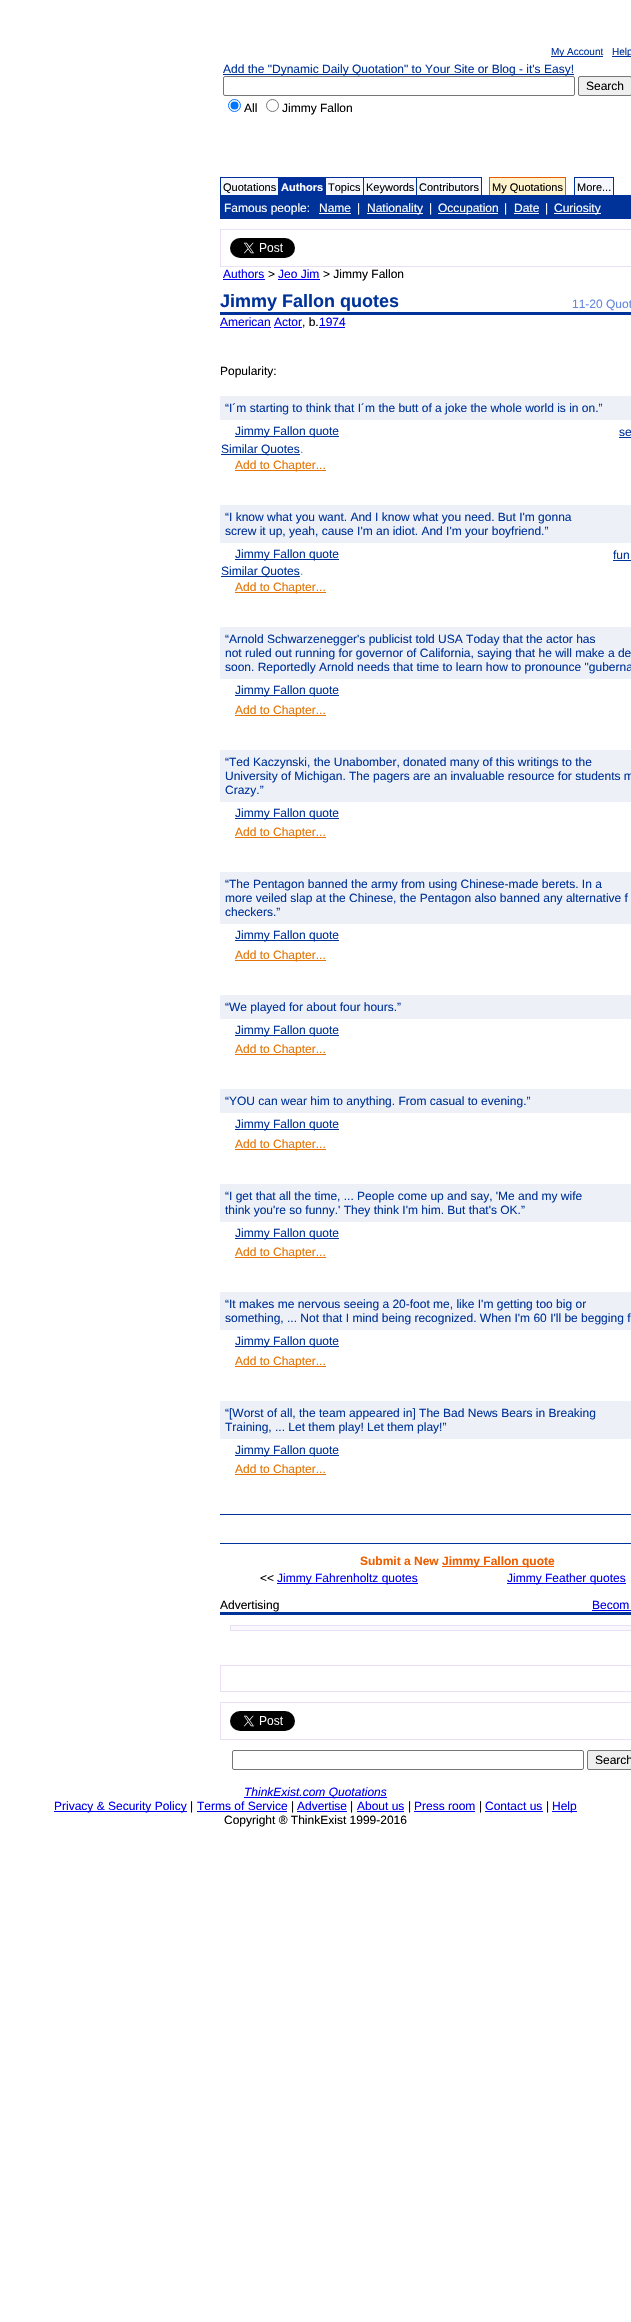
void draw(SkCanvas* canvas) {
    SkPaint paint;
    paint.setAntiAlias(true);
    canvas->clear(0xFFFFFFFF);
    paint.setColor(0xFF00309C);
    canvas->drawRect(SkRect::MakeXYWH(551, 56, 52, 1), paint);
    SkFont font1(fontMgr->matchFamilyStyle("Liberation Sans", SkFontStyle::Normal()), 10);
    font1.setSubpixel(true);
    paint.setColor(0xFF003399);
    canvas->drawString("My Account", 551, 55, font1, paint);
    paint.setColor(0xFF00309C);
    canvas->drawRect(SkRect::MakeXYWH(612, 56, 19, 1), paint);
    paint.setColor(0xFF003399);
    canvas->drawString("Help", 612, 55, font1, paint);
    canvas->drawRect(SkRect::MakeXYWH(223, 74, 351, 1), paint);
    SkFont font2(fontMgr->matchFamilyStyle("Liberation Sans", SkFontStyle::Normal()), 12);
    font2.setSubpixel(true);
    canvas->drawString("Add the \"Dynamic Daily Quotation\" to Your Site or Blog - it's Easy!", 223, 73, font2, paint);
    paint.setStyle(SkPaint::kStroke_Style);
    paint.setStrokeWidth(1);
    paint.setColor(0xFF767676);
    canvas->drawRoundRect(SkRect::MakeXYWH(223.5f, 76.5f, 351, 19), 1.5f, 1.5f, paint);
    paint.setStyle(SkPaint::kFill_Style);
    paint.setColor(0xFFEFEFEF);
    canvas->drawRoundRect(SkRect::MakeXYWH(578.5f, 76.5f, 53, 19), 1.5f, 1.5f, paint);
    paint.setStyle(SkPaint::kStroke_Style);
    paint.setColor(0xFF767676);
    canvas->drawRoundRect(SkRect::MakeXYWH(578.5f, 76.5f, 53, 19), 1.5f, 1.5f, paint);
    paint.setStyle(SkPaint::kFill_Style);
    paint.setColor(0xFF000000);
    canvas->drawString("Search", 586, 90, font2, paint);
    paint.setStyle(SkPaint::kStroke_Style);
    paint.setColor(0xFF0075FF);
    canvas->drawCircle(234.5f, 105.5f, 6, paint);
    paint.setStyle(SkPaint::kFill_Style);
    canvas->drawCircle(234.5f, 105.5f, 4, paint);
    paint.setColor(0xFF000000);
    canvas->drawString("All", 244, 112, font2, paint);
    paint.setStyle(SkPaint::kStroke_Style);
    paint.setColor(0xFF767676);
    canvas->drawCircle(272.5f, 105.5f, 6, paint);
    paint.setStyle(SkPaint::kFill_Style);
    paint.setColor(0xFF000000);
    canvas->drawString("Jimmy Fallon", 282, 112, font2, paint);
    paint.setColor(0xFF003399);
    canvas->drawRect(SkRect::MakeXYWH(220, 195, 411, 24), paint);
    paint.setColor(0xFFF7F7FF);
    canvas->drawRect(SkRect::MakeXYWH(221, 178, 57, 17), paint);
    paint.setColor(0xFF00309C);
    canvas->drawRect(SkRect::MakeXYWH(220, 177, 59, 1), paint);
    canvas->drawRect(SkRect::MakeXYWH(278, 177, 48, 18), paint);
    canvas->drawRect(SkRect::MakeXYWH(220, 177, 1, 18), paint);
    SkFont font3(fontMgr->matchFamilyStyle("Liberation Sans", SkFontStyle::Normal()), 11);
    font3.setSubpixel(true);
    paint.setColor(0xFF000000);
    canvas->drawString("Quotations", 223, 191, font3, paint);
    SkFont font4(fontMgr->matchFamilyStyle("Liberation Sans", SkFontStyle::Bold()), 11);
    font4.setSubpixel(true);
    paint.setColor(0xFFFFFFFF);
    canvas->drawString("Authors", 281, 191, font4, paint);
    paint.setColor(0xFFF7F7FF);
    canvas->drawRect(SkRect::MakeXYWH(326, 178, 37, 17), paint);
    paint.setColor(0xFF00309C);
    canvas->drawRect(SkRect::MakeXYWH(326, 177, 156, 1), paint);
    canvas->drawRect(SkRect::MakeXYWH(363, 177, 1, 18), paint);
    paint.setColor(0xFF000000);
    canvas->drawString("Topics", 328, 191, font3, paint);
    paint.setColor(0xFFF7F7FF);
    canvas->drawRect(SkRect::MakeXYWH(364, 178, 52, 17), paint);
    paint.setColor(0xFF00309C);
    canvas->drawRect(SkRect::MakeXYWH(416, 177, 1, 18), paint);
    paint.setColor(0xFF000000);
    canvas->drawString("Keywords", 366, 191, font3, paint);
    paint.setColor(0xFFF7F7FF);
    canvas->drawRect(SkRect::MakeXYWH(417, 178, 64, 17), paint);
    paint.setColor(0xFF00309C);
    canvas->drawRect(SkRect::MakeXYWH(481, 177, 1, 18), paint);
    paint.setColor(0xFF000000);
    canvas->drawString("Contributors", 419, 191, font3, paint);
    paint.setColor(0xFFFFF3CE);
    canvas->drawRect(SkRect::MakeXYWH(490, 178, 75, 17), paint);
    paint.setColor(0xFFE75900);
    canvas->drawRect(SkRect::MakeXYWH(489, 177, 77, 1), paint);
    canvas->drawRect(SkRect::MakeXYWH(565, 177, 1, 18), paint);
    canvas->drawRect(SkRect::MakeXYWH(489, 177, 1, 18), paint);
    paint.setColor(0xFF000000);
    canvas->drawString("My Quotations", 492, 191, font3, paint);
    paint.setColor(0xFFF7F7FF);
    canvas->drawRect(SkRect::MakeXYWH(575, 178, 38, 17), paint);
    paint.setColor(0xFF00309C);
    canvas->drawRect(SkRect::MakeXYWH(574, 177, 40, 1), paint);
    canvas->drawRect(SkRect::MakeXYWH(613, 177, 1, 18), paint);
    canvas->drawRect(SkRect::MakeXYWH(574, 177, 1, 18), paint);
    paint.setColor(0xFF000000);
    canvas->drawString("More...", 577, 191, font3, paint);
    paint.setColor(0xFFFFFFFF);
    canvas->drawString("Famous people:", 224, 212, font2, paint);
    canvas->drawString("Name", 319, 212, font2, paint);
    canvas->drawRect(SkRect::MakeXYWH(319, 213, 32, 1), paint);
    canvas->drawString("|", 357, 212, font2, paint);
    canvas->drawRect(SkRect::MakeXYWH(367, 213, 56, 1), paint);
    canvas->drawString("Nationality", 367, 212, font2, paint);
    canvas->drawString("|", 429, 212, font2, paint);
    canvas->drawRect(SkRect::MakeXYWH(438, 213, 60, 1), paint);
    canvas->drawString("Occupation", 438, 212, font2, paint);
    canvas->drawString("|", 504, 212, font2, paint);
    canvas->drawString("Date", 514, 212, font2, paint);
    canvas->drawRect(SkRect::MakeXYWH(514, 213, 25, 1), paint);
    canvas->drawString("|", 545, 212, font2, paint);
    canvas->drawRect(SkRect::MakeXYWH(554, 213, 47, 1), paint);
    canvas->drawString("Curiosity", 554, 212, font2, paint);
    paint.setStyle(SkPaint::kStroke_Style);
    paint.setColor(0xFFE9E0F3);
    canvas->drawRect(SkRect::MakeXYWH(220.5f, 229.5f, 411, 37), paint);
    canvas->drawImageRect(SkImages::DeferredFromEncodedData(SkData::MakeFromFileName("img1.png")), SkRect::MakeXYWH(230, 238, 65, 20), SkSamplingOptions());
    paint.setStyle(SkPaint::kFill_Style);
    paint.setColor(0xFF0000EE);
    canvas->drawString("Authors", 223, 278, font2, paint);
    canvas->drawRect(SkRect::MakeXYWH(223, 279, 42, 1), paint);
    paint.setColor(0xFF000000);
    canvas->drawString(">", 268, 278, font2, paint);
    paint.setColor(0xFF0000EE);
    canvas->drawString("Jeo Jim", 278, 278, font2, paint);
    canvas->drawRect(SkRect::MakeXYWH(278, 279, 42, 1), paint);
    paint.setColor(0xFF000000);
    canvas->drawString("> Jimmy Fallon", 323, 278, font2, paint);
    paint.setColor(0xFF003399);
    canvas->drawRect(SkRect::MakeXYWH(220, 312, 411, 3), paint);
    SkFont font5(fontMgr->matchFamilyStyle("Liberation Sans", SkFontStyle::Bold()), 18);
    font5.setSubpixel(true);
    canvas->drawString("Jimmy Fallon quotes", 220, 307, font5, paint);
    paint.setColor(0xFF6388DB);
    canvas->drawString("11-20 Quot", 572, 308, font2, paint);
    paint.setColor(0xFF0000EE);
    canvas->drawString("American Actor", 220, 326, font2, paint);
    canvas->drawRect(SkRect::MakeXYWH(220, 327, 51, 1), paint);
    canvas->drawRect(SkRect::MakeXYWH(274, 327, 28, 1), paint);
    paint.setColor(0xFF000000);
    canvas->drawString(", b.", 302, 326, font2, paint);
    paint.setColor(0xFF0000EE);
    canvas->drawRect(SkRect::MakeXYWH(319, 327, 26, 1), paint);
    canvas->drawString("1974", 319, 326, font2, paint);
    paint.setColor(0xFF000000);
    canvas->drawString("Popularity:", 220, 375, font2, paint);
    paint.setColor(0xFFEDF1F7);
    canvas->drawRect(SkRect::MakeXYWH(220, 396, 411, 24), paint);
    paint.setColor(0xFF003399);
    canvas->drawString("“I´m starting to think that I´m the butt of a joke the whole world is in on.”", 225, 412, font2, paint);
    canvas->drawRect(SkRect::MakeXYWH(235, 436, 104, 1), paint);
    canvas->drawString("Jimmy Fallon quote", 235, 435, font2, paint);
    canvas->drawString("se", 619, 436, font2, paint);
    canvas->drawRect(SkRect::MakeXYWH(619, 437, 12, 1), paint);
    canvas->drawRect(SkRect::MakeXYWH(221, 454, 79, 1), paint);
    canvas->drawString("Similar Quotes", 221, 453, font2, paint);
    paint.setColor(0xFF6388DB);
    canvas->drawString(".", 300, 453, font2, paint);
    paint.setColor(0xFFE47404);
    canvas->drawRect(SkRect::MakeXYWH(235, 470, 91, 1), paint);
    canvas->drawString("Add to Chapter...", 235, 469, font2, paint);
    paint.setColor(0xFFEDF1F7);
    canvas->drawRect(SkRect::MakeXYWH(220, 505, 411, 38), paint);
    paint.setColor(0xFF003399);
    canvas->drawString("“I know what you want. And I know what you need. But I'm gonna", 225, 521, font2, paint);
    canvas->drawString("screw it up, yeah, cause I'm an idiot. And I'm your boyfriend.”", 225, 535, font2, paint);
    canvas->drawRect(SkRect::MakeXYWH(235, 559, 104, 1), paint);
    canvas->drawString("Jimmy Fallon quote", 235, 558, font2, paint);
    canvas->drawString("fun", 613, 559, font2, paint);
    canvas->drawRect(SkRect::MakeXYWH(613, 560, 18, 1), paint);
    canvas->drawRect(SkRect::MakeXYWH(221, 576, 79, 1), paint);
    canvas->drawString("Similar Quotes", 221, 575, font2, paint);
    paint.setColor(0xFF6388DB);
    canvas->drawString(".", 300, 575, font2, paint);
    paint.setColor(0xFFE47404);
    canvas->drawRect(SkRect::MakeXYWH(235, 592, 91, 1), paint);
    canvas->drawString("Add to Chapter...", 235, 591, font2, paint);
    paint.setColor(0xFFEDF1F7);
    canvas->drawRect(SkRect::MakeXYWH(220, 627, 411, 52), paint);
    paint.setColor(0xFF003399);
    canvas->drawString("“Arnold Schwarzenegger's publicist told USA Today that the actor has", 225, 643, font2, paint);
    canvas->drawString("not ruled out running for governor of California, saying that he will make a de", 225, 657, font2, paint);
    canvas->drawString("soon. Reportedly Arnold needs that time to learn how to pronounce \"guberna", 225, 671, font2, paint);
    canvas->drawRect(SkRect::MakeXYWH(235, 695, 104, 1), paint);
    canvas->drawString("Jimmy Fallon quote", 235, 694, font2, paint);
    paint.setColor(0xFFE47404);
    canvas->drawRect(SkRect::MakeXYWH(235, 715, 91, 1), paint);
    canvas->drawString("Add to Chapter...", 235, 714, font2, paint);
    paint.setColor(0xFFEDF1F7);
    canvas->drawRect(SkRect::MakeXYWH(220, 750, 411, 52), paint);
    paint.setColor(0xFF003399);
    canvas->drawString("“Ted Kaczynski, the Unabomber, donated many of this writings to the", 225, 766, font2, paint);
    canvas->drawString("University of Michigan. The pagers are an invaluable resource for students m", 225, 780, font2, paint);
    canvas->drawString("Crazy.”", 225, 794, font2, paint);
    canvas->drawRect(SkRect::MakeXYWH(235, 818, 104, 1), paint);
    canvas->drawString("Jimmy Fallon quote", 235, 817, font2, paint);
    paint.setColor(0xFFE47404);
    canvas->drawRect(SkRect::MakeXYWH(235, 837, 91, 1), paint);
    canvas->drawString("Add to Chapter...", 235, 836, font2, paint);
    paint.setColor(0xFFEDF1F7);
    canvas->drawRect(SkRect::MakeXYWH(220, 872, 411, 52), paint);
    paint.setColor(0xFF003399);
    canvas->drawString("“The Pentagon banned the army from using Chinese-made berets. In a", 225, 888, font2, paint);
    canvas->drawString("more veiled slap at the Chinese, the Pentagon also banned any alternative f", 225, 902, font2, paint);
    canvas->drawString("checkers.”", 225, 916, font2, paint);
    canvas->drawRect(SkRect::MakeXYWH(235, 940, 104, 1), paint);
    canvas->drawString("Jimmy Fallon quote", 235, 939, font2, paint);
    paint.setColor(0xFFE47404);
    canvas->drawRect(SkRect::MakeXYWH(235, 960, 91, 1), paint);
    canvas->drawString("Add to Chapter...", 235, 959, font2, paint);
    paint.setColor(0xFFEDF1F7);
    canvas->drawRect(SkRect::MakeXYWH(220, 995, 411, 24), paint);
    paint.setColor(0xFF003399);
    canvas->drawString("“We played for about four hours.”", 225, 1011, font2, paint);
    canvas->drawRect(SkRect::MakeXYWH(235, 1035, 104, 1), paint);
    canvas->drawString("Jimmy Fallon quote", 235, 1034, font2, paint);
    paint.setColor(0xFFE47404);
    canvas->drawRect(SkRect::MakeXYWH(235, 1054, 91, 1), paint);
    canvas->drawString("Add to Chapter...", 235, 1053, font2, paint);
    paint.setColor(0xFFEDF1F7);
    canvas->drawRect(SkRect::MakeXYWH(220, 1089, 411, 24), paint);
    paint.setColor(0xFF003399);
    canvas->drawString("“YOU can wear him to anything. From casual to evening.”", 225, 1105, font2, paint);
    canvas->drawRect(SkRect::MakeXYWH(235, 1129, 104, 1), paint);
    canvas->drawString("Jimmy Fallon quote", 235, 1128, font2, paint);
    paint.setColor(0xFFE47404);
    canvas->drawRect(SkRect::MakeXYWH(235, 1149, 91, 1), paint);
    canvas->drawString("Add to Chapter...", 235, 1148, font2, paint);
    paint.setColor(0xFFEDF1F7);
    canvas->drawRect(SkRect::MakeXYWH(220, 1184, 411, 38), paint);
    paint.setColor(0xFF003399);
    canvas->drawString("“I get that all the time, ... People come up and say, 'Me and my wife", 225, 1200, font2, paint);
    canvas->drawString("think you're so funny.' They think I'm him. But that's OK.”", 225, 1214, font2, paint);
    canvas->drawRect(SkRect::MakeXYWH(235, 1238, 104, 1), paint);
    canvas->drawString("Jimmy Fallon quote", 235, 1237, font2, paint);
    paint.setColor(0xFFE47404);
    canvas->drawRect(SkRect::MakeXYWH(235, 1257, 91, 1), paint);
    canvas->drawString("Add to Chapter...", 235, 1256, font2, paint);
    paint.setColor(0xFFEDF1F7);
    canvas->drawRect(SkRect::MakeXYWH(220, 1292, 411, 38), paint);
    paint.setColor(0xFF003399);
    canvas->drawString("“It makes me nervous seeing a 20-foot me, like I'm getting too big or", 225, 1308, font2, paint);
    canvas->drawString("something, ... Not that I mind being recognized. When I'm 60 I'll be begging f", 225, 1322, font2, paint);
    canvas->drawRect(SkRect::MakeXYWH(235, 1346, 104, 1), paint);
    canvas->drawString("Jimmy Fallon quote", 235, 1345, font2, paint);
    paint.setColor(0xFFE47404);
    canvas->drawRect(SkRect::MakeXYWH(235, 1366, 91, 1), paint);
    canvas->drawString("Add to Chapter...", 235, 1365, font2, paint);
    paint.setColor(0xFFEDF1F7);
    canvas->drawRect(SkRect::MakeXYWH(220, 1401, 411, 38), paint);
    paint.setColor(0xFF003399);
    canvas->drawString("“[Worst of all, the team appeared in] The Bad News Bears in Breaking", 225, 1417, font2, paint);
    canvas->drawString("Training, ... Let them play! Let them play!”", 225, 1431, font2, paint);
    canvas->drawRect(SkRect::MakeXYWH(235, 1455, 104, 1), paint);
    canvas->drawString("Jimmy Fallon quote", 235, 1454, font2, paint);
    paint.setColor(0xFFE47404);
    canvas->drawRect(SkRect::MakeXYWH(235, 1474, 91, 1), paint);
    canvas->drawString("Add to Chapter...", 235, 1473, font2, paint);
    paint.setColor(0xFF003399);
    canvas->drawRect(SkRect::MakeXYWH(220, 1514, 411, 1), paint);
    canvas->drawRect(SkRect::MakeXYWH(220, 1543, 411, 1), paint);
    SkFont font6(fontMgr->matchFamilyStyle("Liberation Sans", SkFontStyle::Bold()), 12);
    font6.setSubpixel(true);
    paint.setColor(0xFFED5E00);
    canvas->drawString("Submit a New", 360, 1565, font6, paint);
    canvas->drawRect(SkRect::MakeXYWH(442, 1566, 112, 1), paint);
    canvas->drawString("Jimmy Fallon quote", 442, 1565, font6, paint);
    paint.setColor(0xFF000000);
    canvas->drawString("<<", 260, 1582, font2, paint);
    paint.setColor(0xFF0000EE);
    canvas->drawRect(SkRect::MakeXYWH(277, 1583, 141, 1), paint);
    canvas->drawString("Jimmy Fahrenholtz quotes", 277, 1582, font2, paint);
    canvas->drawRect(SkRect::MakeXYWH(507, 1583, 119, 1), paint);
    canvas->drawString("Jimmy Feather quotes", 507, 1582, font2, paint);
    paint.setColor(0xFF003399);
    canvas->drawRect(SkRect::MakeXYWH(220, 1612, 411, 3), paint);
    paint.setColor(0xFF000000);
    canvas->drawString("Advertising", 220, 1609, font2, paint);
    paint.setColor(0xFF0000EE);
    canvas->drawString("Becom", 592, 1609, font2, paint);
    canvas->drawRect(SkRect::MakeXYWH(592, 1610, 39, 1), paint);
    paint.setColor(0xFFFAF8FC);
    canvas->drawRect(SkRect::MakeXYWH(230.5f, 1625.5f, 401, 5), paint);
    paint.setStyle(SkPaint::kStroke_Style);
    paint.setColor(0xFFE9E0F3);
    canvas->drawRect(SkRect::MakeXYWH(230.5f, 1625.5f, 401, 5), paint);
    canvas->drawRect(SkRect::MakeXYWH(220.5f, 1665.5f, 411, 26), paint);
    canvas->drawRect(SkRect::MakeXYWH(220.5f, 1702.5f, 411, 37), paint);
    canvas->drawImageRect(SkImages::DeferredFromEncodedData(SkData::MakeFromFileName("img1.png")), SkRect::MakeXYWH(230, 1711, 65, 20), SkSamplingOptions());
    paint.setColor(0xFF767676);
    canvas->drawRoundRect(SkRect::MakeXYWH(232.5f, 1750.5f, 351, 19), 1.5f, 1.5f, paint);
    paint.setStyle(SkPaint::kFill_Style);
    paint.setColor(0xFFEFEFEF);
    canvas->drawRoundRect(SkRect::MakeXYWH(587.5f, 1750.5f, 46, 19), 1.5f, 1.5f, paint);
    paint.setStyle(SkPaint::kStroke_Style);
    paint.setColor(0xFF767676);
    canvas->drawRoundRect(SkRect::MakeXYWH(587.5f, 1750.5f, 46, 19), 1.5f, 1.5f, paint);
    paint.setStyle(SkPaint::kFill_Style);
    paint.setColor(0xFF000000);
    canvas->drawString("Search", 595, 1764, font2, paint);
    paint.setColor(0xFF0000EE);
    canvas->drawRect(SkRect::MakeXYWH(244, 1797, 143, 1), paint);
    SkFont font7(fontMgr->matchFamilyStyle("Liberation Sans", SkFontStyle::Italic()), 12);
    font7.setSubpixel(true);
    canvas->drawString("ThinkExist.com Quotations", 244, 1796, font7, paint);
    canvas->drawRect(SkRect::MakeXYWH(54, 1811, 133, 1), paint);
    canvas->drawString("Privacy & Security Policy", 54, 1810, font2, paint);
    paint.setColor(0xFF000000);
    canvas->drawString("|", 190, 1810, font2, paint);
    paint.setColor(0xFF0000EE);
    canvas->drawString("Terms of Service", 197, 1810, font2, paint);
    canvas->drawRect(SkRect::MakeXYWH(197, 1811, 90, 1), paint);
    paint.setColor(0xFF000000);
    canvas->drawString("|", 291, 1810, font2, paint);
    paint.setColor(0xFF0000EE);
    canvas->drawString("Advertise", 297, 1810, font2, paint);
    canvas->drawRect(SkRect::MakeXYWH(297, 1811, 50, 1), paint);
    paint.setColor(0xFF000000);
    canvas->drawString("|", 350, 1810, font2, paint);
    paint.setColor(0xFF0000EE);
    canvas->drawString("About us", 357, 1810, font2, paint);
    canvas->drawRect(SkRect::MakeXYWH(357, 1811, 47, 1), paint);
    paint.setColor(0xFF000000);
    canvas->drawString("|", 408, 1810, font2, paint);
    paint.setColor(0xFF0000EE);
    canvas->drawString("Press room", 414, 1810, font2, paint);
    canvas->drawRect(SkRect::MakeXYWH(414, 1811, 61, 1), paint);
    paint.setColor(0xFF000000);
    canvas->drawString("|", 479, 1810, font2, paint);
    paint.setColor(0xFF0000EE);
    canvas->drawString("Contact us", 485, 1810, font2, paint);
    canvas->drawRect(SkRect::MakeXYWH(485, 1811, 58, 1), paint);
    paint.setColor(0xFF000000);
    canvas->drawString("|", 546, 1810, font2, paint);
    paint.setColor(0xFF0000EE);
    canvas->drawRect(SkRect::MakeXYWH(552, 1811, 25, 1), paint);
    canvas->drawString("Help", 552, 1810, font2, paint);
    paint.setColor(0xFF000000);
    canvas->drawString("Copyright ® ThinkExist 1999-2016", 224, 1824, font2, paint);
}
